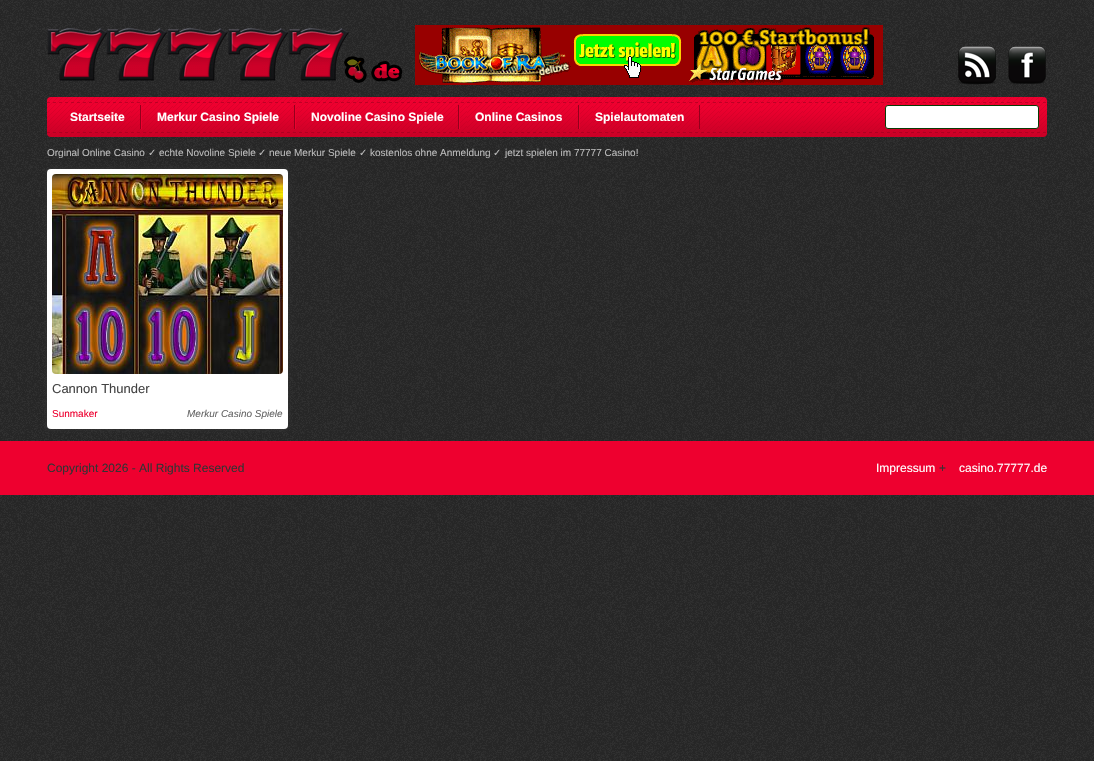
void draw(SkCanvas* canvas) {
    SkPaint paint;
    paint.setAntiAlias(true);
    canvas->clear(0xFFFFFFFF);
    canvas->drawImageRect(SkImages::DeferredFromEncodedData(SkData::MakeFromFileName("img1.png")), SkRect::MakeXYWH(0, 0, 1094, 761), SkSamplingOptions());
    canvas->drawImageRect(SkImages::DeferredFromEncodedData(SkData::MakeFromFileName("img2.png")), SkRect::MakeXYWH(47, 28, 356, 55), SkSamplingOptions());
    canvas->drawImageRect(SkImages::DeferredFromEncodedData(SkData::MakeFromFileName("img3.png")), SkRect::MakeXYWH(415, 25, 468, 60), SkSamplingOptions());
    canvas->drawImageRect(SkImages::DeferredFromEncodedData(SkData::MakeFromFileName("img4.png")), SkRect::MakeXYWH(958, 46, 38, 39), SkSamplingOptions());
    canvas->drawImageRect(SkImages::DeferredFromEncodedData(SkData::MakeFromFileName("img5.png")), SkRect::MakeXYWH(1008, 46, 38, 38), SkSamplingOptions());
    canvas->drawImageRect(SkImages::DeferredFromEncodedData(SkData::MakeFromFileName("img6.png")), SkRect::MakeXYWH(47, 97, 1000, 40), SkSamplingOptions());
    paint.setColor(0xFF93001C);
    canvas->drawRect(SkRect::MakeXYWH(140, 105, 1, 24), paint);
    SkFont font1(fontMgr->matchFamilyStyle("Liberation Sans", SkFontStyle::Bold()), 12);
    font1.setSubpixel(true);
    paint.setColor(0xFFFFFFFF);
    canvas->drawString("Startseite", 70, 121, font1, paint);
    paint.setColor(0xFF93001C);
    canvas->drawRect(SkRect::MakeXYWH(294, 105, 1, 24), paint);
    paint.setColor(0xFFEE002F);
    canvas->drawRect(SkRect::MakeXYWH(141, 105, 1, 24), paint);
    paint.setColor(0xFFFFFFFF);
    canvas->drawString("Merkur Casino Spiele", 157, 121, font1, paint);
    paint.setColor(0xFF93001C);
    canvas->drawRect(SkRect::MakeXYWH(458, 105, 1, 24), paint);
    paint.setColor(0xFFEE002F);
    canvas->drawRect(SkRect::MakeXYWH(295, 105, 1, 24), paint);
    paint.setColor(0xFFFFFFFF);
    canvas->drawString("Novoline Casino Spiele", 311, 121, font1, paint);
    paint.setColor(0xFF93001C);
    canvas->drawRect(SkRect::MakeXYWH(578, 105, 1, 24), paint);
    paint.setColor(0xFFEE002F);
    canvas->drawRect(SkRect::MakeXYWH(459, 105, 1, 24), paint);
    paint.setColor(0xFFFFFFFF);
    canvas->drawString("Online Casinos", 475, 121, font1, paint);
    paint.setColor(0xFF93001C);
    canvas->drawRect(SkRect::MakeXYWH(699, 105, 1, 24), paint);
    paint.setColor(0xFFEE002F);
    canvas->drawRect(SkRect::MakeXYWH(579, 105, 1, 24), paint);
    paint.setColor(0xFFFFFFFF);
    canvas->drawString("Spielautomaten", 595, 121, font1, paint);
    canvas->drawRoundRect(SkRect::MakeXYWH(885.5f, 105.5f, 153, 23), 2.5f, 2.5f, paint);
    paint.setStyle(SkPaint::kStroke_Style);
    paint.setStrokeWidth(1);
    paint.setColor(0xFF083B05);
    canvas->drawRoundRect(SkRect::MakeXYWH(885.5f, 105.5f, 153, 23), 2.5f, 2.5f, paint);
    SkFont font2(fontMgr->matchFamilyStyle("Liberation Sans", SkFontStyle::Normal()), 10);
    font2.setSubpixel(true);
    paint.setStyle(SkPaint::kFill_Style);
    paint.setColor(0xFFBBBBBB);
    canvas->drawString("Orginal Online Casino", 47, 156, font2, paint);
    SkFont font3(fontMgr->matchFamilyStyle("DejaVu Sans", SkFontStyle::Normal()), 10);
    font3.setSubpixel(true);
    canvas->drawString("✓", 148, 156, font3, paint);
    canvas->drawString("echte Novoline Spiele", 159, 156, font2, paint);
    canvas->drawString("✓", 258, 156, font3, paint);
    canvas->drawString("neue Merkur Spiele", 269, 156, font2, paint);
    canvas->drawString("✓", 359, 156, font3, paint);
    canvas->drawString("kostenlos ohne Anmeldung", 370, 156, font2, paint);
    canvas->drawString("✓", 493, 156, font3, paint);
    canvas->drawString("jetzt spielen im 77777 Casino!", 505, 156, font2, paint);
    paint.setColor(0xFF333333);
    paint.setMaskFilter(SkMaskFilter::MakeBlur(kNormal_SkBlurStyle, 2.5f));
    canvas->drawRoundRect(SkRect::MakeXYWH(47, 169, 241, 260), 4, 4, paint);
    paint.setMaskFilter(nullptr);
    paint.setColor(0xFFFFFFFF);
    canvas->drawRoundRect(SkRect::MakeXYWH(47, 169, 241, 260), 4, 4, paint);
    canvas->drawImageRect(SkImages::DeferredFromEncodedData(SkData::MakeFromFileName("img7.png")), SkRect::MakeXYWH(52, 174, 231, 200), SkSamplingOptions());
    SkFont font4(fontMgr->matchFamilyStyle("Liberation Sans", SkFontStyle::Normal()), 13);
    font4.setSubpixel(true);
    paint.setColor(0xFF434343);
    canvas->drawString("Cannon Thunder", 52, 393, font4, paint);
    paint.setColor(0xFFEE002F);
    canvas->drawString("Sunmaker", 52, 417, font2, paint);
    SkFont font5(fontMgr->matchFamilyStyle("Liberation Sans", SkFontStyle::Italic()), 10);
    font5.setSubpixel(true);
    paint.setColor(0xFF666666);
    canvas->drawString("Merkur Casino Spiele", 187, 417, font5, paint);
    paint.setColor(0xFFEE002F);
    canvas->drawRect(SkRect::MakeXYWH(0, 441, 1094, 54), paint);
    SkFont font6(fontMgr->matchFamilyStyle("Liberation Sans", SkFontStyle::Normal()), 12);
    font6.setSubpixel(true);
    paint.setColor(0xFF333333);
    canvas->drawString("Copyright 2026 - All Rights Reserved", 47, 472, font6, paint);
    paint.setColor(0xFFFFFFFF);
    canvas->drawString("Impressum", 876, 472, font6, paint);
    paint.setColor(0xFF333333);
    canvas->drawString("+", 939, 472, font6, paint);
    paint.setColor(0xFFFFFFFF);
    canvas->drawString("casino.77777.de", 959, 472, font6, paint);
}
